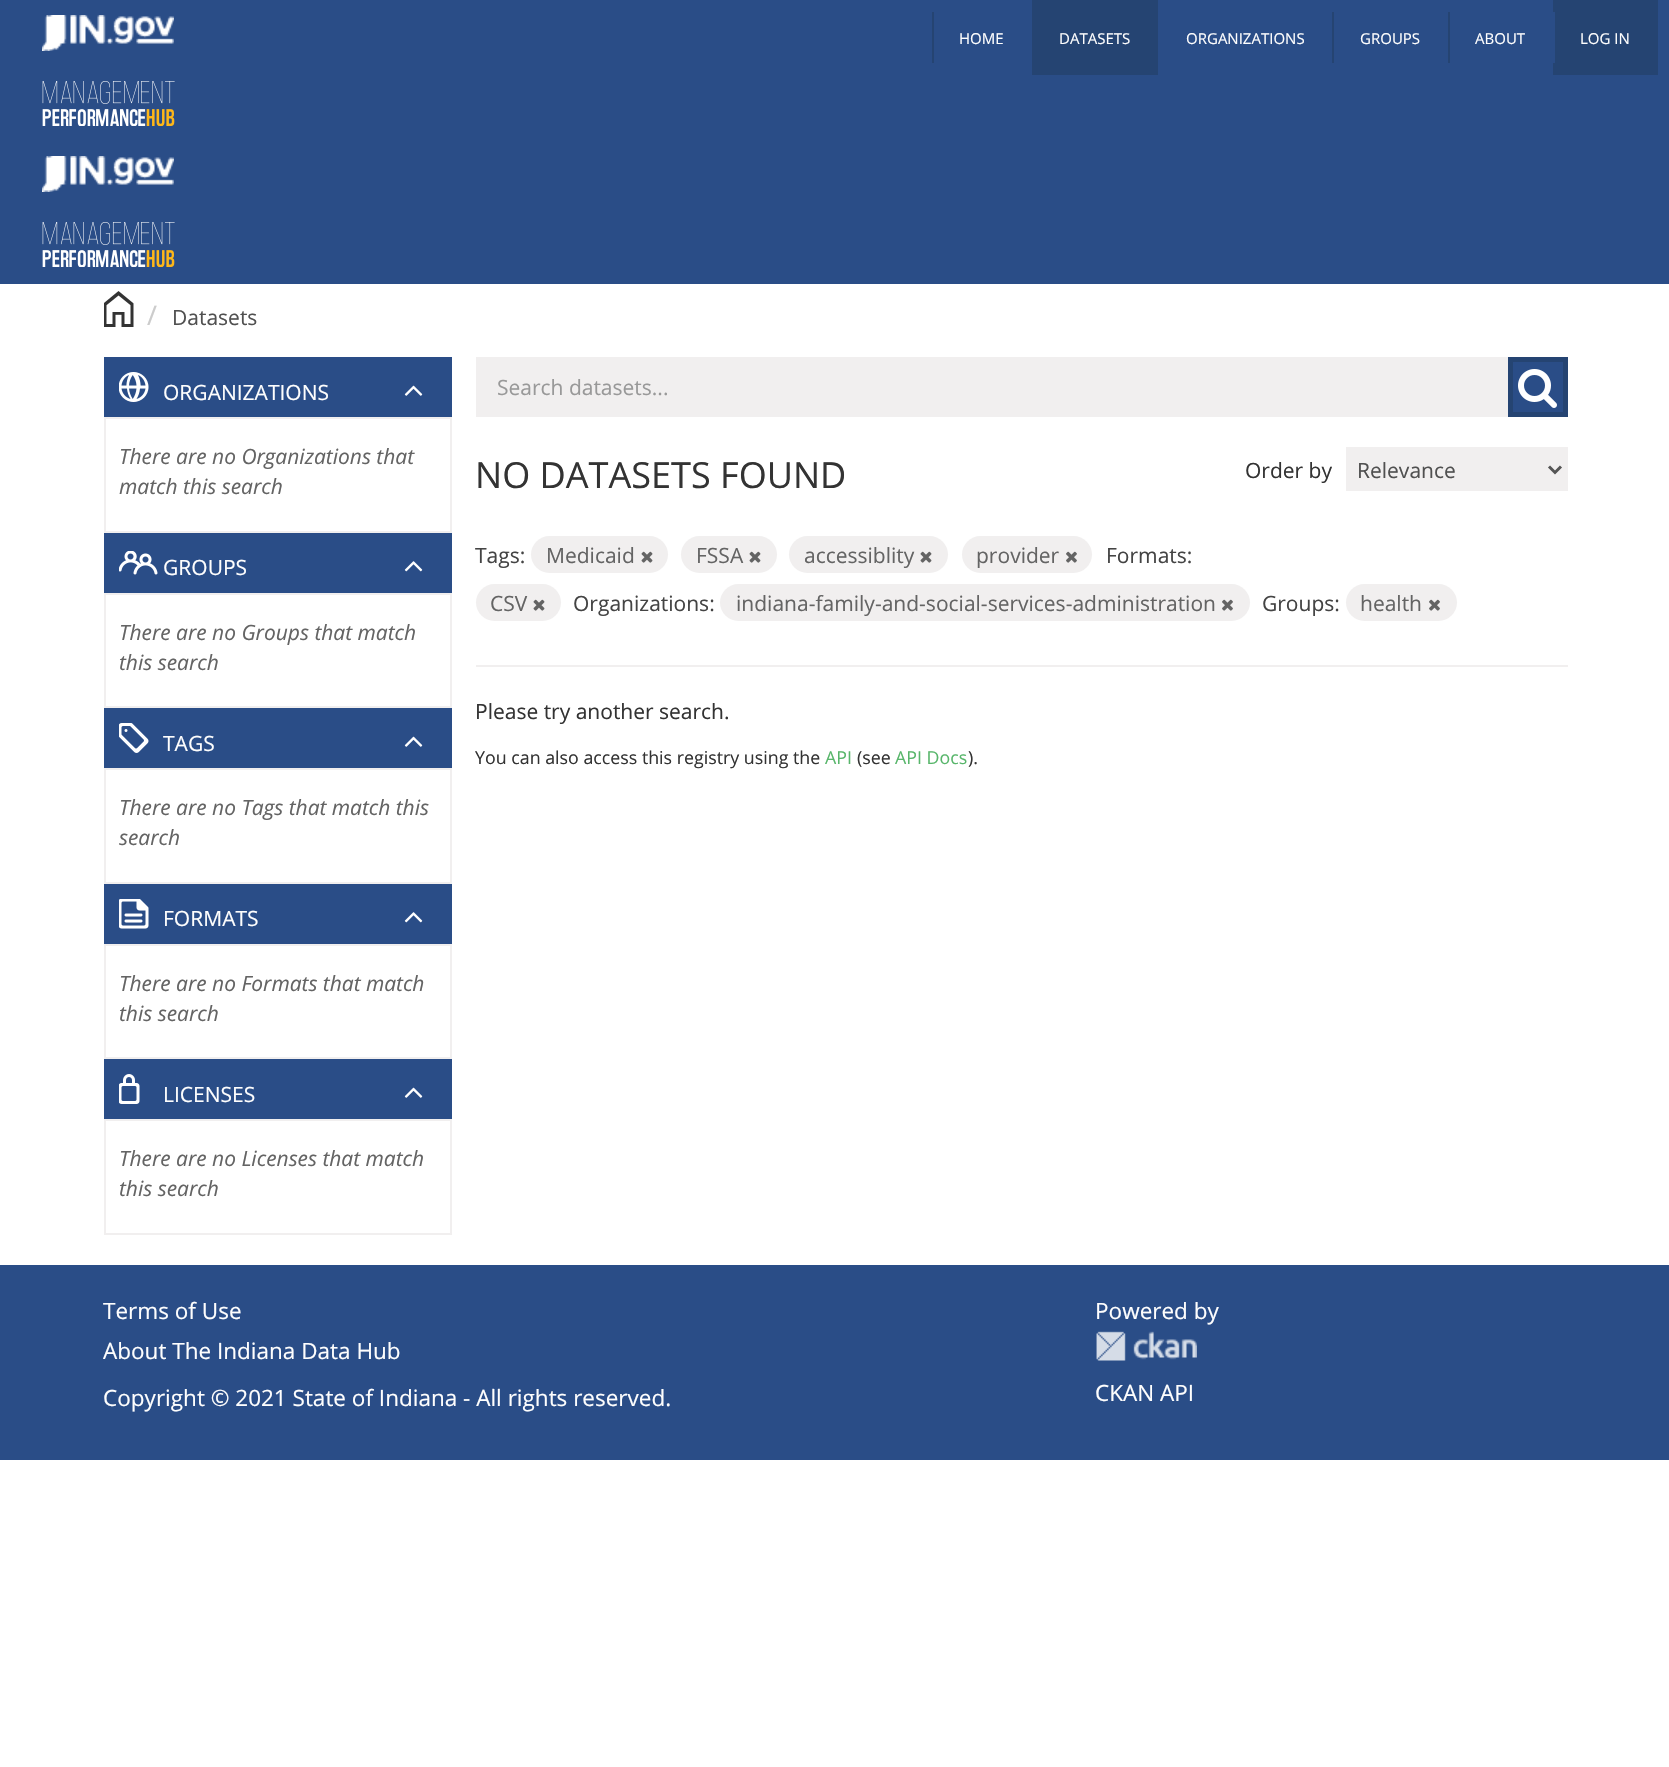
void draw(SkCanvas* canvas) {
    SkPaint paint;
    paint.setAntiAlias(true);
    canvas->clear(0xFFFFFFFF);
    paint.setColor(0xFF2A4D87);
    canvas->drawRect(SkRect::MakeXYWH(0, 0, 1669, 284), paint);
    canvas->drawImageRect(SkImages::DeferredFromEncodedData(SkData::MakeFromFileName("img1.png")), SkRect::MakeXYWH(42, 15, 132, 36), SkSamplingOptions());
    canvas->drawImageRect(SkImages::DeferredFromEncodedData(SkData::MakeFromFileName("img2.png")), SkRect::MakeXYWH(42, 81, 133, 45), SkSamplingOptions());
    canvas->drawImageRect(SkImages::DeferredFromEncodedData(SkData::MakeFromFileName("img1.png")), SkRect::MakeXYWH(42, 156, 132, 36), SkSamplingOptions());
    canvas->drawImageRect(SkImages::DeferredFromEncodedData(SkData::MakeFromFileName("img2.png")), SkRect::MakeXYWH(42, 222, 133, 45), SkSamplingOptions());
    paint.setColor(0xFF254472);
    canvas->drawRect(SkRect::MakeXYWH(932, 12, 2, 51), paint);
    SkFont font1(fontMgr->matchFamilyStyle("Open Sans", SkFontStyle::Normal()), 15);
    font1.setSubpixel(true);
    paint.setColor(0xFFFEFEFE);
    canvas->drawString("HOME", 959, 44, font1, paint);
    paint.setColor(0xFF254472);
    canvas->drawRect(SkRect::MakeXYWH(1032, 0, 126, 75), paint);
    paint.setColor(0xFFFEFEFE);
    canvas->drawString("DATASETS", 1059, 44, font1, paint);
    canvas->drawString("ORGANIZATIONS", 1186, 44, font1, paint);
    paint.setColor(0xFF254472);
    canvas->drawRect(SkRect::MakeXYWH(1332, 12, 2, 51), paint);
    paint.setColor(0xFFFEFEFE);
    canvas->drawString("GROUPS", 1360, 44, font1, paint);
    paint.setColor(0xFF254472);
    canvas->drawRect(SkRect::MakeXYWH(1448, 12, 2, 51), paint);
    paint.setColor(0xFFFEFEFE);
    canvas->drawString("ABOUT", 1475, 44, font1, paint);
    paint.setColor(0xFF254472);
    canvas->drawRect(SkRect::MakeXYWH(1553, 0, 105, 75), paint);
    paint.setColor(0xFF2A4D87);
    canvas->drawRect(SkRect::MakeXYWH(1553, 12, 2, 51), paint);
    paint.setColor(0xFFFEFEFE);
    canvas->drawString("LOG IN", 1580, 44, font1, paint);
    canvas->drawImageRect(SkImages::DeferredFromEncodedData(SkData::MakeFromFileName("img3.png")), SkRect::MakeXYWH(104, 291, 30, 36), SkSamplingOptions());
    SkFont font2(fontMgr->matchFamilyStyle("Open Sans", SkFontStyle::Normal()), 27);
    font2.setSubpixel(true);
    paint.setColor(0xFFCCCCCC);
    canvas->drawString("/", 147, 325, font2, paint);
    SkFont font3(fontMgr->matchFamilyStyle("Open Sans", SkFontStyle::Normal()), 21);
    font3.setSubpixel(true);
    paint.setColor(0xFF505050);
    canvas->drawString("Datasets", 172, 325, font3, paint);
    paint.setColor(0xFF2A4D87);
    canvas->drawRect(SkRect::MakeXYWH(104, 357, 348, 60), paint);
    canvas->drawImageRect(SkImages::DeferredFromEncodedData(SkData::MakeFromFileName("img4.png")), SkRect::MakeXYWH(119, 372, 30, 30), SkSamplingOptions());
    paint.setColor(0xFFFEFEFE);
    canvas->drawString("ORGANIZATIONS", 163, 400, font3, paint);
    canvas->drawImageRect(SkImages::DeferredFromEncodedData(SkData::MakeFromFileName("img5.png")), SkRect::MakeXYWH(404, 385, 19, 11), SkSamplingOptions());
    paint.setStyle(SkPaint::kStroke_Style);
    paint.setStrokeWidth(2);
    paint.setColor(0xFFF1EFEF);
    canvas->drawRect(SkRect::MakeXYWH(105, 418, 346, 114), paint);
    SkFont font4(fontMgr->matchFamilyStyle("Open Sans", SkFontStyle::Italic()), 21);
    font4.setSubpixel(true);
    paint.setStyle(SkPaint::kFill_Style);
    paint.setColor(0xFF646464);
    canvas->drawString("There are no Organizations that", 119, 464, font4, paint);
    canvas->drawString("match this search", 119, 494, font4, paint);
    paint.setColor(0xFF2A4D87);
    canvas->drawRect(SkRect::MakeXYWH(104, 533, 348, 60), paint);
    canvas->drawImageRect(SkImages::DeferredFromEncodedData(SkData::MakeFromFileName("img6.png")), SkRect::MakeXYWH(119, 551, 39, 24), SkSamplingOptions());
    paint.setColor(0xFFFEFEFE);
    canvas->drawString("GROUPS", 163, 575, font3, paint);
    canvas->drawImageRect(SkImages::DeferredFromEncodedData(SkData::MakeFromFileName("img7.png")), SkRect::MakeXYWH(404, 561, 19, 11), SkSamplingOptions());
    paint.setStyle(SkPaint::kStroke_Style);
    paint.setColor(0xFFF1EFEF);
    canvas->drawRect(SkRect::MakeXYWH(105, 594, 346, 113), paint);
    paint.setStyle(SkPaint::kFill_Style);
    paint.setColor(0xFF646464);
    canvas->drawString("There are no Groups that match", 119, 640, font4, paint);
    canvas->drawString("this search", 119, 670, font4, paint);
    paint.setColor(0xFF2A4D87);
    canvas->drawRect(SkRect::MakeXYWH(104, 708, 348, 60), paint);
    canvas->drawImageRect(SkImages::DeferredFromEncodedData(SkData::MakeFromFileName("img8.png")), SkRect::MakeXYWH(119, 723, 30, 30), SkSamplingOptions());
    paint.setColor(0xFFFEFEFE);
    canvas->drawString("TAGS", 163, 751, font3, paint);
    canvas->drawImageRect(SkImages::DeferredFromEncodedData(SkData::MakeFromFileName("img5.png")), SkRect::MakeXYWH(404, 736, 19, 11), SkSamplingOptions());
    paint.setStyle(SkPaint::kStroke_Style);
    paint.setColor(0xFFF1EFEF);
    canvas->drawRect(SkRect::MakeXYWH(105, 769, 346, 114), paint);
    paint.setStyle(SkPaint::kFill_Style);
    paint.setColor(0xFF646464);
    canvas->drawString("There are no Tags that match this", 119, 815, font4, paint);
    canvas->drawString("search", 119, 845, font4, paint);
    paint.setColor(0xFF2A4D87);
    canvas->drawRect(SkRect::MakeXYWH(104, 884, 348, 60), paint);
    canvas->drawImageRect(SkImages::DeferredFromEncodedData(SkData::MakeFromFileName("img9.png")), SkRect::MakeXYWH(119, 899, 30, 30), SkSamplingOptions());
    paint.setColor(0xFFFEFEFE);
    canvas->drawString("FORMATS", 163, 926, font3, paint);
    canvas->drawImageRect(SkImages::DeferredFromEncodedData(SkData::MakeFromFileName("img7.png")), SkRect::MakeXYWH(404, 912, 19, 11), SkSamplingOptions());
    paint.setStyle(SkPaint::kStroke_Style);
    paint.setColor(0xFFF1EFEF);
    canvas->drawRect(SkRect::MakeXYWH(105, 945, 346, 113), paint);
    paint.setStyle(SkPaint::kFill_Style);
    paint.setColor(0xFF646464);
    canvas->drawString("There are no Formats that match", 119, 991, font4, paint);
    canvas->drawString("this search", 119, 1021, font4, paint);
    paint.setColor(0xFF2A4D87);
    canvas->drawRect(SkRect::MakeXYWH(104, 1059, 348, 60), paint);
    canvas->drawImageRect(SkImages::DeferredFromEncodedData(SkData::MakeFromFileName("img10.png")), SkRect::MakeXYWH(119, 1074, 21, 30), SkSamplingOptions());
    paint.setColor(0xFFFEFEFE);
    canvas->drawString("LICENSES", 163, 1102, font3, paint);
    canvas->drawImageRect(SkImages::DeferredFromEncodedData(SkData::MakeFromFileName("img5.png")), SkRect::MakeXYWH(404, 1087, 19, 11), SkSamplingOptions());
    paint.setStyle(SkPaint::kStroke_Style);
    paint.setColor(0xFFF1EFEF);
    canvas->drawRect(SkRect::MakeXYWH(105, 1120, 346, 114), paint);
    paint.setStyle(SkPaint::kFill_Style);
    paint.setColor(0xFF646464);
    canvas->drawString("There are no Licenses that match", 119, 1166, font4, paint);
    canvas->drawString("this search", 119, 1196, font4, paint);
    paint.setColor(0xFFF1EFEF);
    canvas->drawRect(SkRect::MakeXYWH(476, 665, 1092, 2), paint);
    canvas->drawRect(SkRect::MakeXYWH(476, 357, 1032, 60), paint);
    paint.setColor(0xFF999999);
    canvas->drawString("Search datasets...", 497, 395, font3, paint);
    paint.setColor(0xFF2A4D87);
    canvas->drawRect(SkRect::MakeXYWH(1510.5f, 359.5f, 55, 55), paint);
    paint.setStyle(SkPaint::kStroke_Style);
    paint.setStrokeWidth(5);
    paint.setColor(0xFF254472);
    canvas->drawRect(SkRect::MakeXYWH(1510.5f, 359.5f, 55, 55), paint);
    canvas->drawImageRect(SkImages::DeferredFromEncodedData(SkData::MakeFromFileName("img11.png")), SkRect::MakeXYWH(1518, 369, 39, 39), SkSamplingOptions());
    SkFont font5(fontMgr->matchFamilyStyle("Open Sans", SkFontStyle::Normal()), 36);
    font5.setSubpixel(true);
    paint.setStyle(SkPaint::kFill_Style);
    paint.setColor(0xFF333333);
    canvas->drawString("NO DATASETS FOUND", 475, 488, font5, paint);
    canvas->drawString("Order by", 1245, 478, font3, paint);
    paint.setColor(0xFFF1EFEF);
    canvas->drawRect(SkRect::MakeXYWH(1346, 447, 222, 44), paint);
    paint.setStyle(SkPaint::kStroke_Style);
    paint.setStrokeWidth(3);
    paint.setColor(0xFF555555);
    canvas->drawPath(SkPathBuilder().moveTo(1549, 466.5f).lineTo(1555, 472.5f).lineTo(1561, 466.5f).detach(), paint);
    paint.setStyle(SkPaint::kFill_Style);
    paint.setColor(0xFF505050);
    canvas->drawString("Relevance", 1357, 478, font3, paint);
    paint.setColor(0xFF444444);
    canvas->drawString("Tags:", 475, 563, font3, paint);
    paint.setColor(0xFFF1EFEF);
    canvas->drawRoundRect(SkRect::MakeXYWH(531, 536, 137, 37), 18.5f, 18.5f, paint);
    paint.setColor(0xFF646464);
    canvas->drawString("Medicaid", 546, 563, font3, paint);
    canvas->drawImageRect(SkImages::DeferredFromEncodedData(SkData::MakeFromFileName("img12.png")), SkRect::MakeXYWH(641, 551, 12, 12), SkSamplingOptions());
    paint.setColor(0xFFF1EFEF);
    canvas->drawRoundRect(SkRect::MakeXYWH(681, 536, 96, 37), 18.5f, 18.5f, paint);
    paint.setColor(0xFF646464);
    canvas->drawString("FSSA", 696, 563, font3, paint);
    canvas->drawImageRect(SkImages::DeferredFromEncodedData(SkData::MakeFromFileName("img12.png")), SkRect::MakeXYWH(749, 551, 12, 12), SkSamplingOptions());
    paint.setColor(0xFFF1EFEF);
    canvas->drawRoundRect(SkRect::MakeXYWH(789, 536, 159, 37), 18.5f, 18.5f, paint);
    paint.setColor(0xFF646464);
    canvas->drawString("accessiblity", 804, 563, font3, paint);
    canvas->drawImageRect(SkImages::DeferredFromEncodedData(SkData::MakeFromFileName("img12.png")), SkRect::MakeXYWH(920, 551, 12, 12), SkSamplingOptions());
    paint.setColor(0xFFF1EFEF);
    canvas->drawRoundRect(SkRect::MakeXYWH(962, 536, 130, 37), 18.5f, 18.5f, paint);
    paint.setColor(0xFF646464);
    canvas->drawString("provider", 976, 563, font3, paint);
    canvas->drawImageRect(SkImages::DeferredFromEncodedData(SkData::MakeFromFileName("img13.png")), SkRect::MakeXYWH(1066, 551, 11, 12), SkSamplingOptions());
    paint.setColor(0xFF444444);
    canvas->drawString("Formats:", 1106, 563, font3, paint);
    paint.setColor(0xFFF1EFEF);
    canvas->drawRoundRect(SkRect::MakeXYWH(476, 584, 85, 37), 18.5f, 18.5f, paint);
    paint.setColor(0xFF646464);
    canvas->drawString("CSV", 490, 611, font3, paint);
    canvas->drawImageRect(SkImages::DeferredFromEncodedData(SkData::MakeFromFileName("img12.png")), SkRect::MakeXYWH(533, 599, 12, 12), SkSamplingOptions());
    paint.setColor(0xFF444444);
    canvas->drawString("Organizations:", 573, 611, font3, paint);
    paint.setColor(0xFFF1EFEF);
    canvas->drawRoundRect(SkRect::MakeXYWH(720, 584, 530, 37), 18.5f, 18.5f, paint);
    paint.setColor(0xFF646464);
    canvas->drawString("indiana-family-and-social-services-administration", 736, 611, font3, paint);
    canvas->drawImageRect(SkImages::DeferredFromEncodedData(SkData::MakeFromFileName("img13.png")), SkRect::MakeXYWH(1222, 599, 11, 12), SkSamplingOptions());
    paint.setColor(0xFF444444);
    canvas->drawString("Groups:", 1262, 611, font3, paint);
    paint.setColor(0xFFF1EFEF);
    canvas->drawRoundRect(SkRect::MakeXYWH(1346, 584, 111, 37), 18.5f, 18.5f, paint);
    paint.setColor(0xFF646464);
    canvas->drawString("health", 1360, 611, font3, paint);
    canvas->drawImageRect(SkImages::DeferredFromEncodedData(SkData::MakeFromFileName("img13.png")), SkRect::MakeXYWH(1429, 599, 11, 12), SkSamplingOptions());
    paint.setColor(0xFF333333);
    canvas->drawString("Please try another search.", 475, 719, font3, paint);
    SkFont font6(fontMgr->matchFamilyStyle("Open Sans", SkFontStyle::Normal()), 17.8f);
    font6.setSubpixel(true);
    canvas->drawString("You can also access this registry using the", 475, 764, font6, paint);
    paint.setColor(0xFF58B66B);
    canvas->drawString("API", 825, 764, font6, paint);
    paint.setColor(0xFF333333);
    canvas->drawString("(see", 857, 764, font6, paint);
    paint.setColor(0xFF58B66B);
    canvas->drawString("API Docs", 895, 764, font6, paint);
    paint.setColor(0xFF333333);
    canvas->drawString(").", 968, 764, font6, paint);
    paint.setColor(0xFF2A4D87);
    canvas->drawRect(SkRect::MakeXYWH(0, 1265, 1669, 195), paint);
    SkFont font7(fontMgr->matchFamilyStyle("Open Sans", SkFontStyle::Normal()), 22.5f);
    font7.setSubpixel(true);
    paint.setColor(0xFFFEFEFE);
    canvas->drawString("Terms of Use", 103, 1319, font7, paint);
    canvas->drawString("About The Indiana Data Hub", 103, 1359, font7, paint);
    canvas->drawString("Copyright © 2021 State of Indiana - All rights reserved.", 103, 1406, font7, paint);
    canvas->drawString("Powered by", 1095, 1319, font7, paint);
    canvas->drawImageRect(SkImages::DeferredFromEncodedData(SkData::MakeFromFileName("img14.png")), SkRect::MakeXYWH(1096, 1331, 101, 30), SkSamplingOptions());
    canvas->drawString("CKAN API", 1095, 1401, font7, paint);
}
